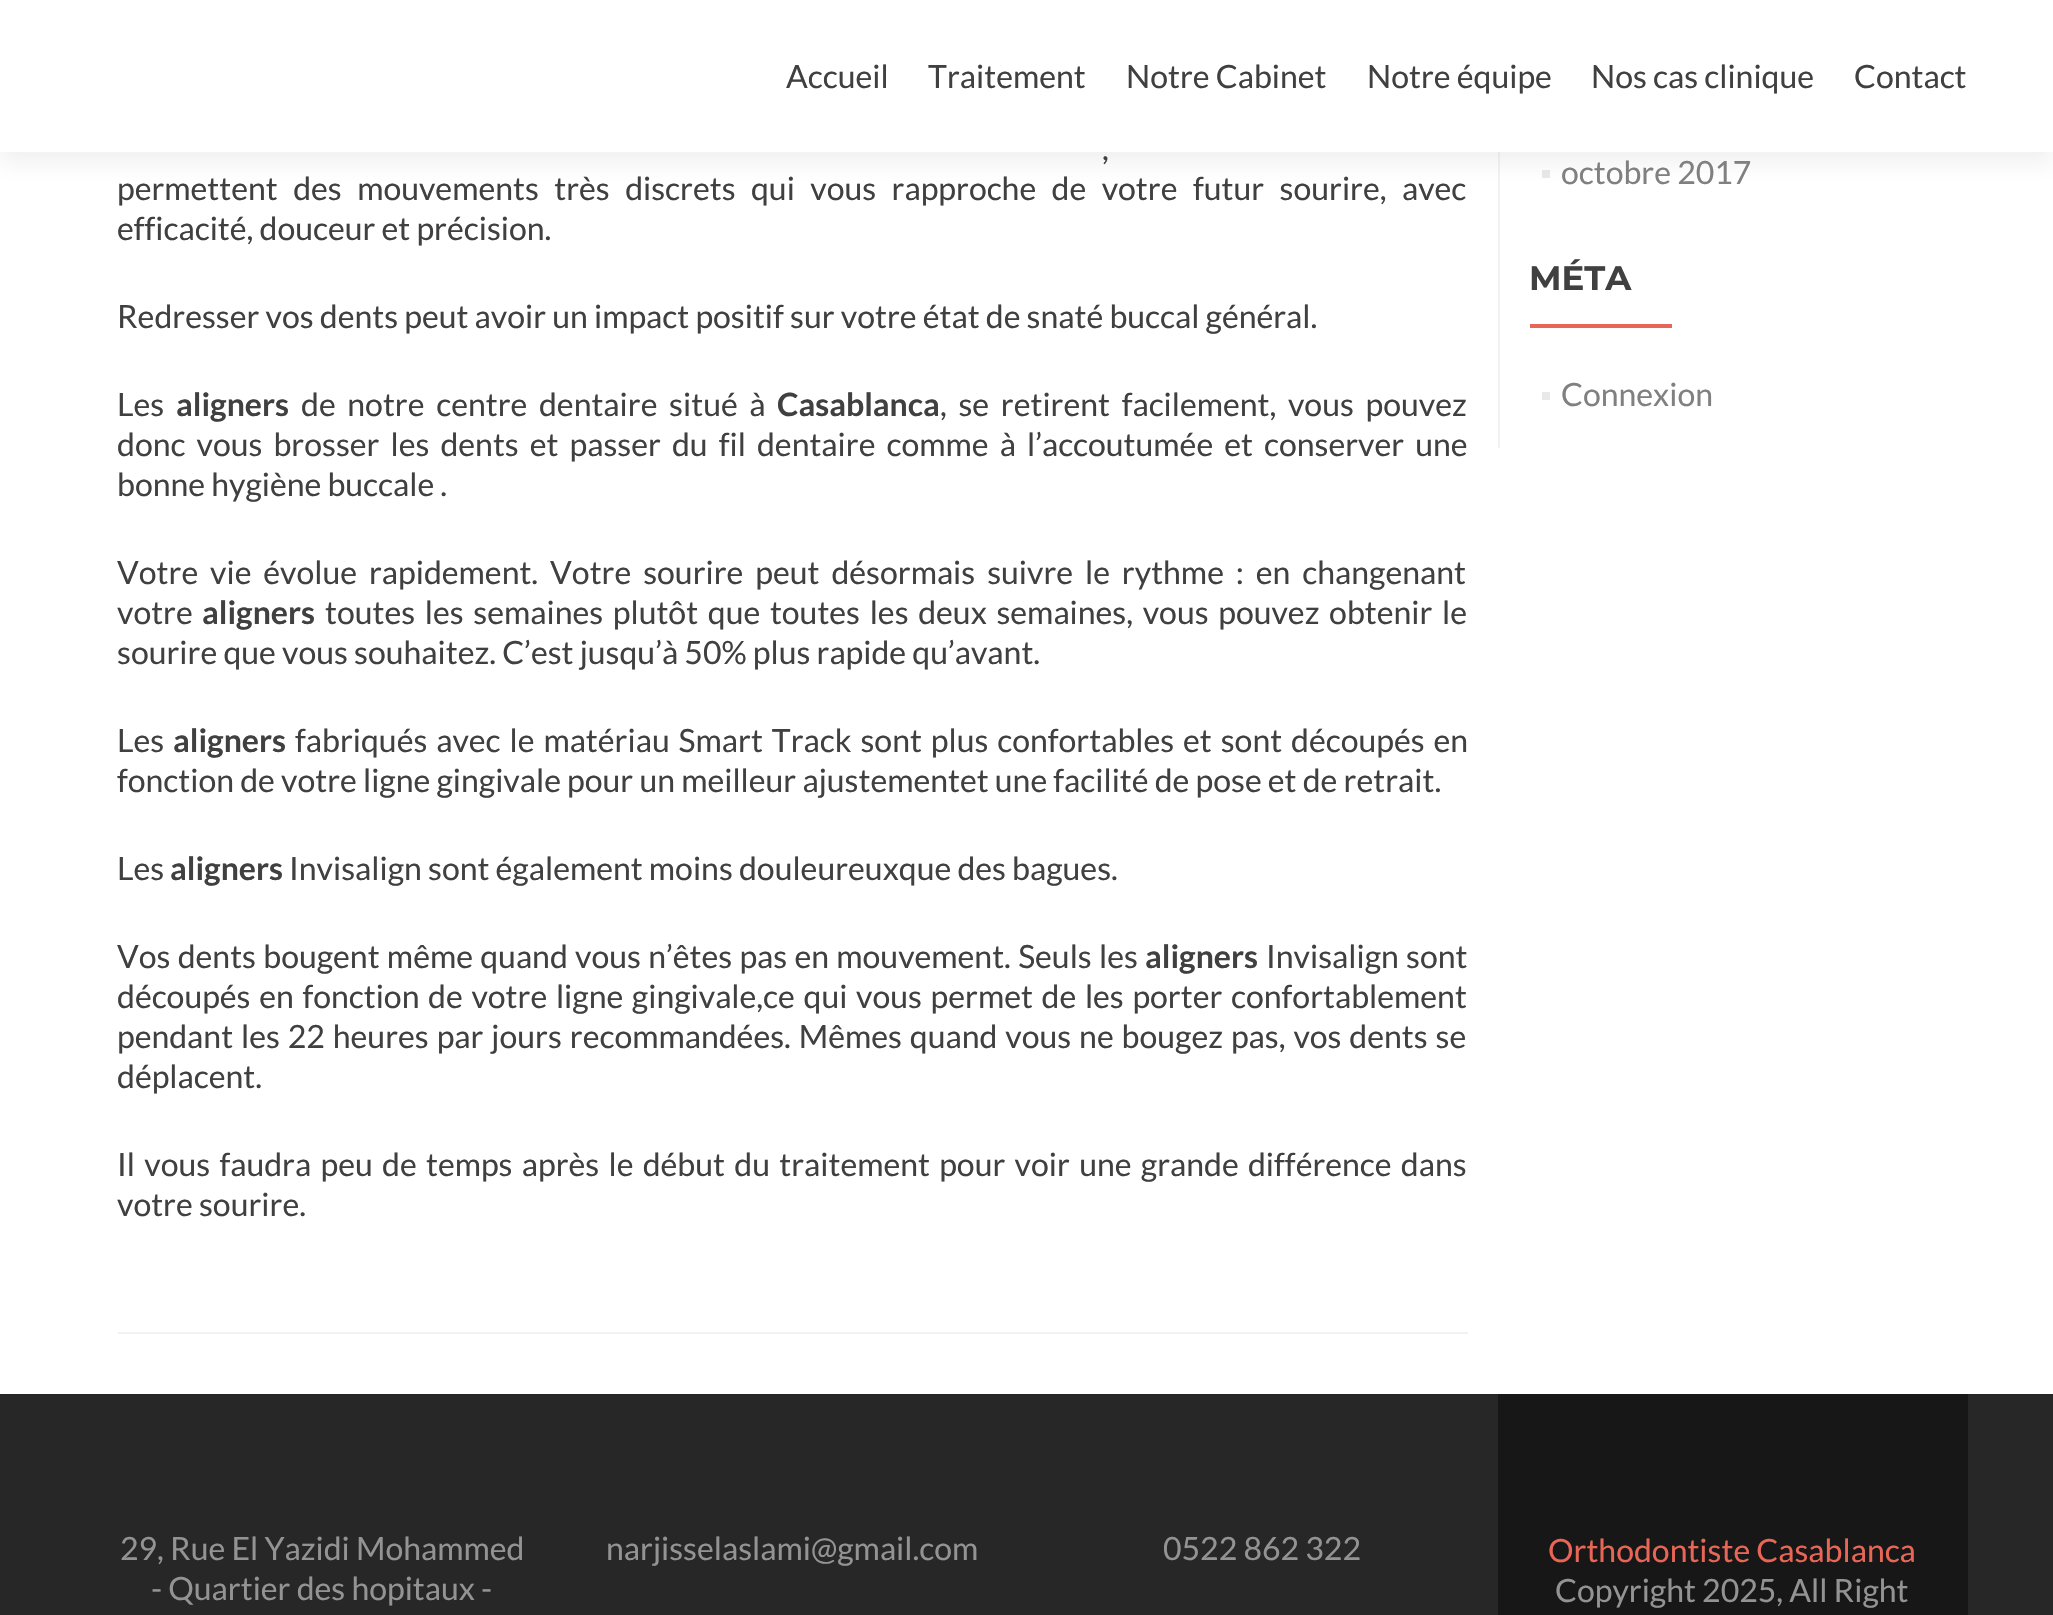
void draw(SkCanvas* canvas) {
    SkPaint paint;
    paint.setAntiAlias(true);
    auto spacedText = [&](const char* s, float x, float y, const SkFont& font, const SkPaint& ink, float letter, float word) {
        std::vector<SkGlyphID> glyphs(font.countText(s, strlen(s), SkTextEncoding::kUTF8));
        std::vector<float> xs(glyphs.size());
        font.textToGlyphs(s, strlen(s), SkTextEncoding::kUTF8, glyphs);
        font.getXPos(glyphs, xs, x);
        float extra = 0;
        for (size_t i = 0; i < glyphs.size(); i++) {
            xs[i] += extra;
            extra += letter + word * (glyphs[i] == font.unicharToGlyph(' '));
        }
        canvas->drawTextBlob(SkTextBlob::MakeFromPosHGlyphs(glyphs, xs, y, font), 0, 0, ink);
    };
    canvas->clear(0xFFFFFFFF);
    paint.setColor(0xFFF2F2F2);
    canvas->drawRect(SkRect::MakeXYWH(1498, 152, 2, 296), paint);
    paint.setColor(0xFFE9E9E9);
    canvas->drawRect(SkRect::MakeXYWH(1542, 170, 8, 8), paint);
    paint.setColor(0x14323232);
    paint.setMaskFilter(SkMaskFilter::MakeBlur(kNormal_SkBlurStyle, 11));
    canvas->drawRect(SkRect::MakeXYWH(0, 10, 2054, 152), paint);
    paint.setMaskFilter(nullptr);
    paint.setColor(0xFFFFFFFF);
    canvas->drawRect(SkRect::MakeXYWH(0, 0, 2053, 152), paint);
    SkFont font1(fontMgr->matchFamilyStyle("Lato", SkFontStyle::Normal()), 32);
    font1.setSubpixel(true);
    paint.setColor(0xFF404040);
    canvas->drawString("Accueil", 786, 88, font1, paint);
    canvas->drawString("Traitement", 928, 88, font1, paint);
    canvas->drawString("Notre Cabinet", 1126, 88, font1, paint);
    canvas->drawString("Notre équipe", 1367, 88, font1, paint);
    canvas->drawString("Nos cas clinique", 1591, 88, font1, paint);
    canvas->drawString("Contact", 1854, 88, font1, paint);
    paint.setColor(0xFFF2F2F2);
    canvas->drawRect(SkRect::MakeXYWH(118, 1332, 1350, 2), paint);
    paint.setColor(0xFF404040);
    spacedText(",", 1102, 160, font1, paint, 0, 2.75f);
    spacedText("permettent des mouvements très discrets qui vous rapproche de votre futur sourire, avec", 117, 200, font1, paint, 0, 9.25f);
    canvas->drawString("efficacité, douceur et précision.", 117, 240, font1, paint);
    canvas->drawString("Redresser vos dents peut avoir un impact positif sur votre état de snaté buccal général.", 117, 328, font1, paint);
    canvas->drawString("Les", 117, 416, font1, paint);
    SkFont font2(fontMgr->matchFamilyStyle("Lato", SkFontStyle::Bold()), 32);
    font2.setSubpixel(true);
    canvas->drawString("aligners", 176, 416, font2, paint);
    spacedText("de notre centre dentaire situé à", 301, 416, font1, paint, 0, 5.5f);
    canvas->drawString("Casablanca", 777, 416, font2, paint);
    spacedText(", se retirent facilement, vous pouvez", 940, 416, font1, paint, 0, 5.5f);
    spacedText("donc vous brosser les dents et passer du fil dentaire comme à l’accoutumée et conserver une", 117, 456, font1, paint, 0, 4.9f);
    canvas->drawString("bonne hygiène buccale .", 117, 496, font1, paint);
    spacedText("Votre vie évolue rapidement. Votre sourire peut désormais suivre le rythme : en changenant", 117, 584, font1, paint, 0, 5.75f);
    canvas->drawString("votre", 117, 624, font1, paint);
    canvas->drawString("aligners", 202, 624, font2, paint);
    spacedText("toutes les semaines plutôt que toutes les deux semaines, vous pouvez obtenir le", 325, 624, font1, paint, 0, 3.5f);
    canvas->drawString("sourire que vous souhaitez. C’est jusqu’à 50% plus rapide qu’avant.", 117, 664, font1, paint);
    canvas->drawString("Les", 117, 752, font1, paint);
    canvas->drawString("aligners", 173, 752, font2, paint);
    spacedText("fabriqués avec le matériau Smart Track sont plus confortables et sont découpés en", 295, 752, font1, paint, 0, 2.75f);
    canvas->drawString("fonction de votre ligne gingivale pour un meilleur ajustementet une facilité de pose et de retrait.", 117, 792, font1, paint);
    canvas->drawString("Les", 117, 880, font1, paint);
    canvas->drawString("aligners", 170, 880, font2, paint);
    canvas->drawString("Invisalign sont également moins douleureuxque des bagues.", 289, 880, font1, paint);
    spacedText("Vos dents bougent même quand vous n’êtes pas en mouvement. Seuls les", 117, 968, font1, paint, 0, 1.1f);
    canvas->drawString("aligners", 1145, 968, font2, paint);
    spacedText("Invisalign sont", 1266, 968, font1, paint, 0, 1);
    spacedText("découpés en fonction de votre ligne gingivale,ce qui vous permet de les porter confortablement", 117, 1008, font1, paint, 0, 2.5f);
    spacedText("pendant les 22 heures par jours recommandées. Mêmes quand vous ne bougez pas, vos dents se", 117, 1048, font1, paint, 0, 1.75f);
    canvas->drawString("déplacent.", 117, 1088, font1, paint);
    spacedText("Il vous faudra peu de temps après le début du traitement pour voir une grande différence dans", 117, 1176, font1, paint, 0, 3.1f);
    canvas->drawString("votre sourire.", 117, 1216, font1, paint);
    paint.setColor(0xFF808080);
    canvas->drawString("octobre 2017", 1561, 184, font1, paint);
    SkFont font3(fontMgr->matchFamilyStyle("Montserrat", SkFontStyle::Bold()), 34);
    font3.setSubpixel(true);
    paint.setColor(0xFF404040);
    canvas->drawString("MÉTA", 1529, 290, font3, paint);
    paint.setColor(0xFFE96656);
    canvas->drawRect(SkRect::MakeXYWH(1530, 324, 142, 4), paint);
    paint.setColor(0xFFE9E9E9);
    canvas->drawRect(SkRect::MakeXYWH(1542, 392, 8, 8), paint);
    paint.setColor(0xFF808080);
    canvas->drawString("Connexion", 1561, 406, font1, paint);
    paint.setColor(0xFF272727);
    canvas->drawRect(SkRect::MakeXYWH(0, 1394, 2053, 221), paint);
    paint.setColor(0xFF939393);
    canvas->drawString("29, Rue El Yazidi Mohammed", 120, 1560, font1, paint);
    canvas->drawString("- Quartier des hopitaux -", 151, 1600, font1, paint);
    canvas->drawString("narjisselaslami@gmail.com", 606, 1560, font1, paint);
    canvas->drawString("0522 862 322", 1163, 1560, font1, paint);
    paint.setColor(0xFF171717);
    canvas->drawRect(SkRect::MakeXYWH(1498, 1394, 470, 221), paint);
    paint.setColor(0xFFE96656);
    canvas->drawString("Orthodontiste Casablanca", 1548, 1562, font1, paint);
    paint.setColor(0xFF939393);
    canvas->drawString("Copyright 2025, All Right", 1555, 1602, font1, paint);
}
